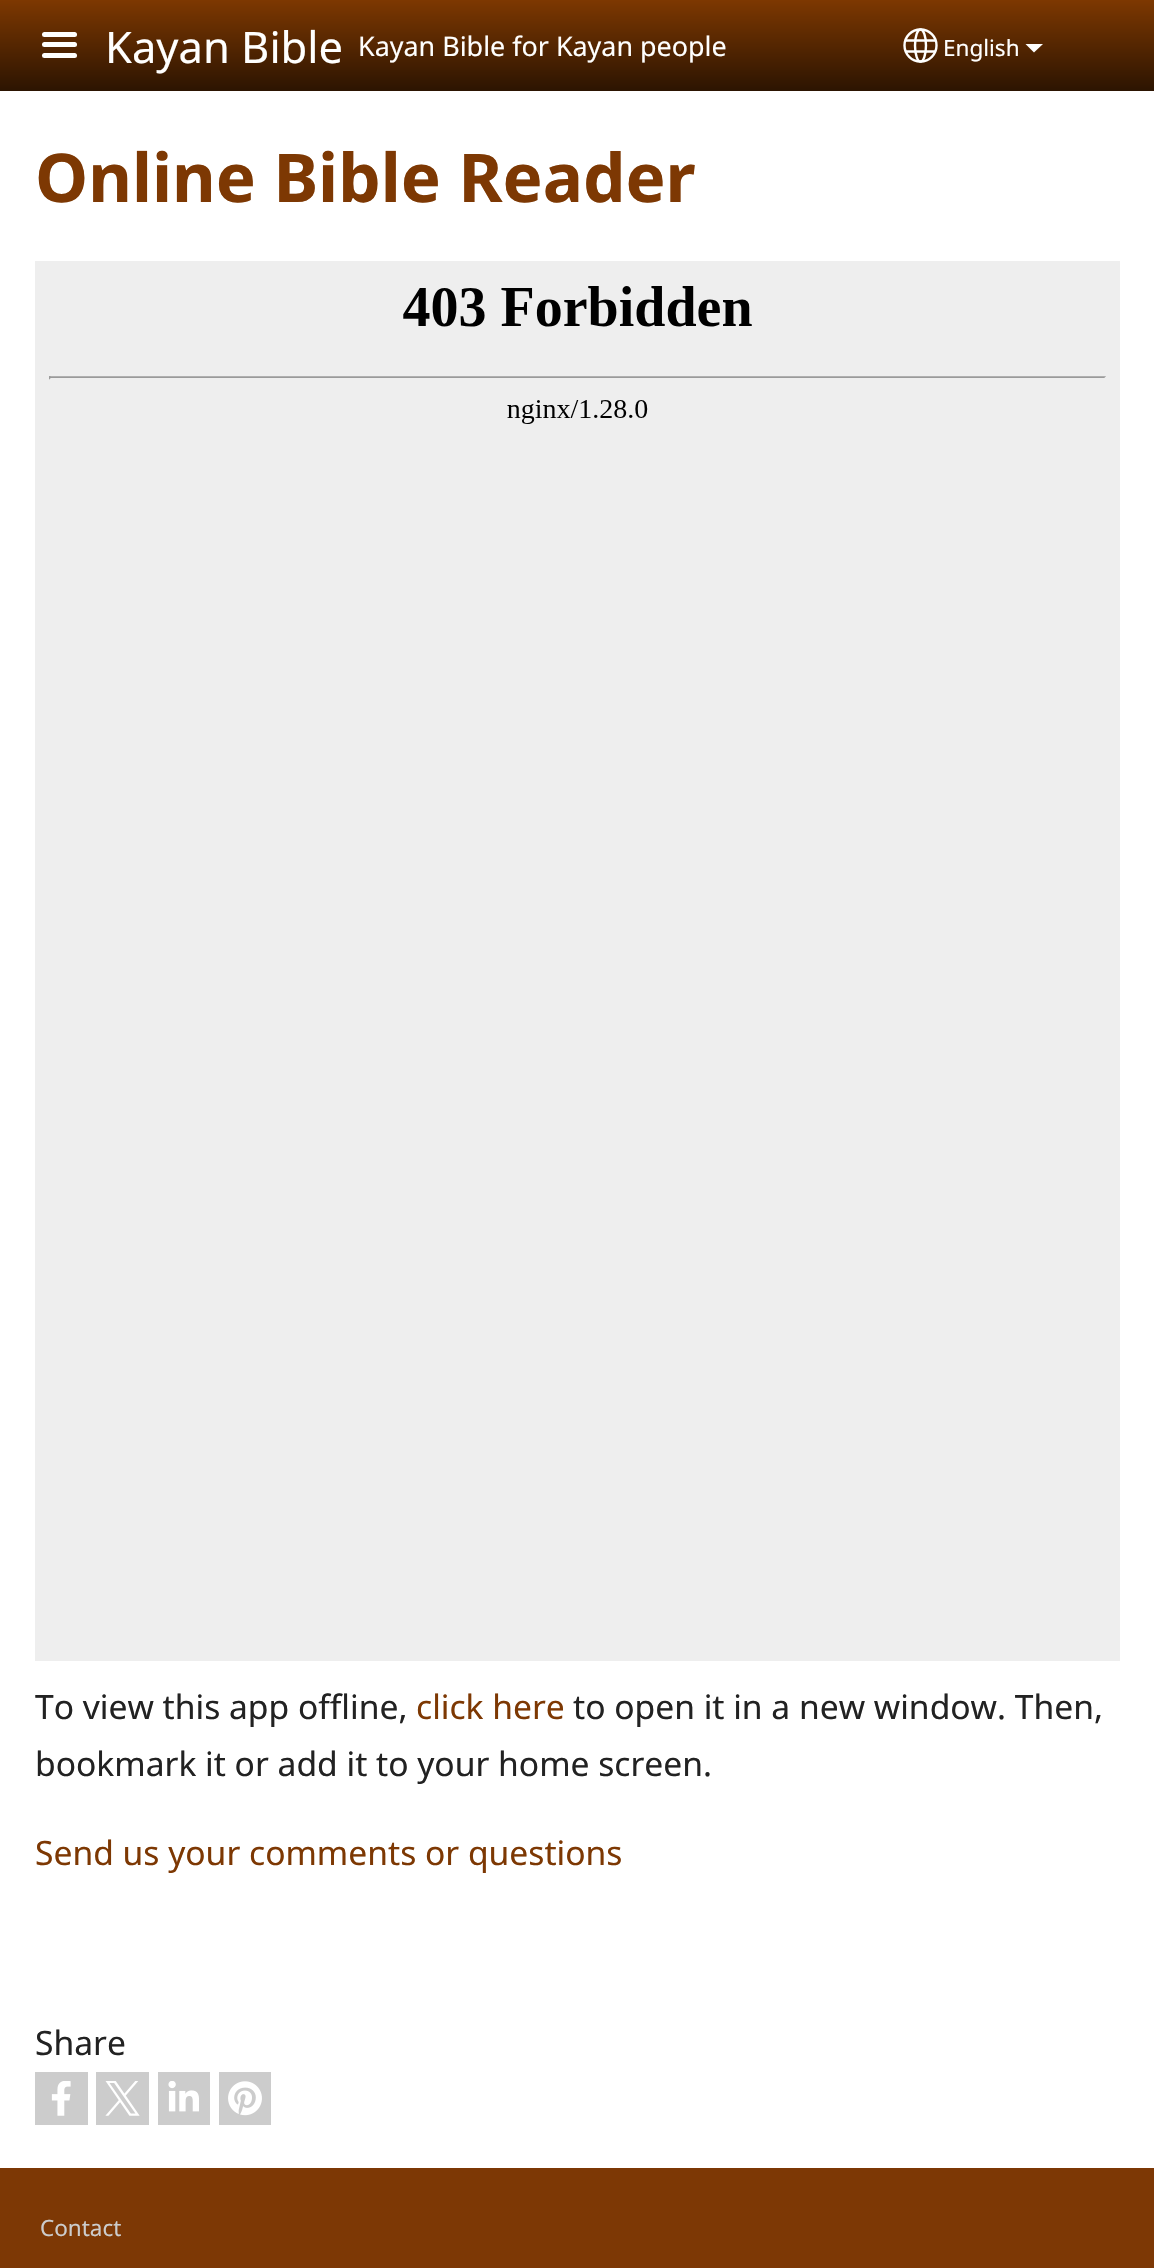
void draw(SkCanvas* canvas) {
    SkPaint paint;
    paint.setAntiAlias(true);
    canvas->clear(0xFFFFFFFF);
    {
        const SkColor colors[] = {0xFF7D3801, 0xFF2C1401};
        const float stops[] = {0, 1};
        const SkPoint ends[] = {{578, 0}, {578, 91}};
        paint.setShader(SkGradientShader::MakeLinear(ends, colors, stops, 2, SkTileMode::kClamp));
        paint.setAlpha(255);
    }
    canvas->drawRect(SkRect::MakeXYWH(0, 0, 1154, 91), paint);
    paint.setShader(nullptr);
    paint.setColor(0xFFFFFFFE);
    canvas->drawRoundRect(SkRect::MakeXYWH(42, 32, 35, 5), 2.5f, 2.5f, paint);
    canvas->drawRoundRect(SkRect::MakeXYWH(42, 42, 35, 5), 2.5f, 2.5f, paint);
    canvas->drawRoundRect(SkRect::MakeXYWH(42, 53, 35, 5), 2.5f, 2.5f, paint);
    SkFont font1(fontMgr->matchFamilyStyle("Noto Sans", SkFontStyle::Normal()), 43.5f);
    font1.setSubpixel(true);
    canvas->drawString("Kayan Bible", 105, 63, font1, paint);
    SkFont font2(fontMgr->matchFamilyStyle("Noto Sans", SkFontStyle::Normal()), 26.9f);
    font2.setSubpixel(true);
    canvas->drawString("Kayan Bible for Kayan people", 358, 56, font2, paint);
    paint.setStyle(SkPaint::kStroke_Style);
    paint.setStrokeWidth(2.4f);
    canvas->drawCircle(920.5f, 45.5f, 16, paint);
    canvas->drawOval(SkRect::MakeXYWH(915, 29.5f, 11, 32), paint);
    canvas->drawPath(SkPathBuilder().moveTo(905, 51.5f).lineTo(935.5f, 51.5f).moveTo(905, 40.5f).lineTo(935.5f, 40.5f).detach(), paint);
    SkFont font3(fontMgr->matchFamilyStyle("Noto Sans", SkFontStyle::Normal()), 22.5f);
    font3.setSubpixel(true);
    paint.setStyle(SkPaint::kFill_Style);
    canvas->drawString("English", 943, 56, font3, paint);
    canvas->drawPath(SkPathBuilder().moveTo(1025.5f, 44).lineTo(1043, 44).lineTo(1034, 52.5f).close().detach(), paint);
    SkFont font4(fontMgr->matchFamilyStyle("Noto Sans", SkFontStyle::Bold()), 67.25f);
    font4.setSubpixel(true);
    paint.setColor(0xFF7D3803);
    canvas->drawString("Online Bible Reader", 35, 202, font4, paint);
    paint.setColor(0xFFEEEEEE);
    canvas->drawRect(SkRect::MakeXYWH(35, 261, 1085, 1400), paint);
    canvas->drawImageRect(SkImages::DeferredFromEncodedData(SkData::MakeFromFileName("img1.png")), SkRect::MakeXYWH(49, 286, 1057, 138), SkSamplingOptions());
    SkFont font5(fontMgr->matchFamilyStyle("Noto Sans", SkFontStyle::Normal()), 33.6f);
    font5.setSubpixel(true);
    paint.setColor(0xFF222222);
    canvas->drawString("To view this app offline,", 35, 1719, font5, paint);
    paint.setColor(0xFF7D3803);
    canvas->drawString("click here", 416, 1719, font5, paint);
    paint.setColor(0xFF222222);
    canvas->drawString("to open it in a new window. Then,", 573, 1719, font5, paint);
    canvas->drawString("bookmark it or add it to your home screen.", 35, 1776, font5, paint);
    paint.setColor(0xFF7D3803);
    canvas->drawString("Send us your comments or questions", 35, 1865, font5, paint);
    paint.setColor(0xFF222222);
    canvas->drawString("Share", 35, 2055, font5, paint);
    paint.setColor(0xFFCCCCCC);
    canvas->drawRect(SkRect::MakeXYWH(35, 2072, 53, 53), paint);
    canvas->drawImageRect(SkImages::DeferredFromEncodedData(SkData::MakeFromFileName("img2.png")), SkRect::MakeXYWH(51, 2081, 20, 35), SkSamplingOptions());
    canvas->drawRect(SkRect::MakeXYWH(96, 2072, 53, 53), paint);
    canvas->drawImageRect(SkImages::DeferredFromEncodedData(SkData::MakeFromFileName("img3.png")), SkRect::MakeXYWH(105, 2081, 35, 35), SkSamplingOptions());
    canvas->drawRect(SkRect::MakeXYWH(158, 2072, 52, 53), paint);
    canvas->drawImageRect(SkImages::DeferredFromEncodedData(SkData::MakeFromFileName("img4.png")), SkRect::MakeXYWH(168, 2081, 31, 31), SkSamplingOptions());
    canvas->drawRect(SkRect::MakeXYWH(219, 2072, 52, 53), paint);
    canvas->drawImageRect(SkImages::DeferredFromEncodedData(SkData::MakeFromFileName("img5.png")), SkRect::MakeXYWH(228, 2081, 34, 35), SkSamplingOptions());
    paint.setColor(0xFF7D3805);
    canvas->drawRect(SkRect::MakeXYWH(0, 2168, 1154, 100), paint);
    paint.setColor(0xFFCCCCCC);
    canvas->drawString("Contact", 40, 2236, font3, paint);
}
